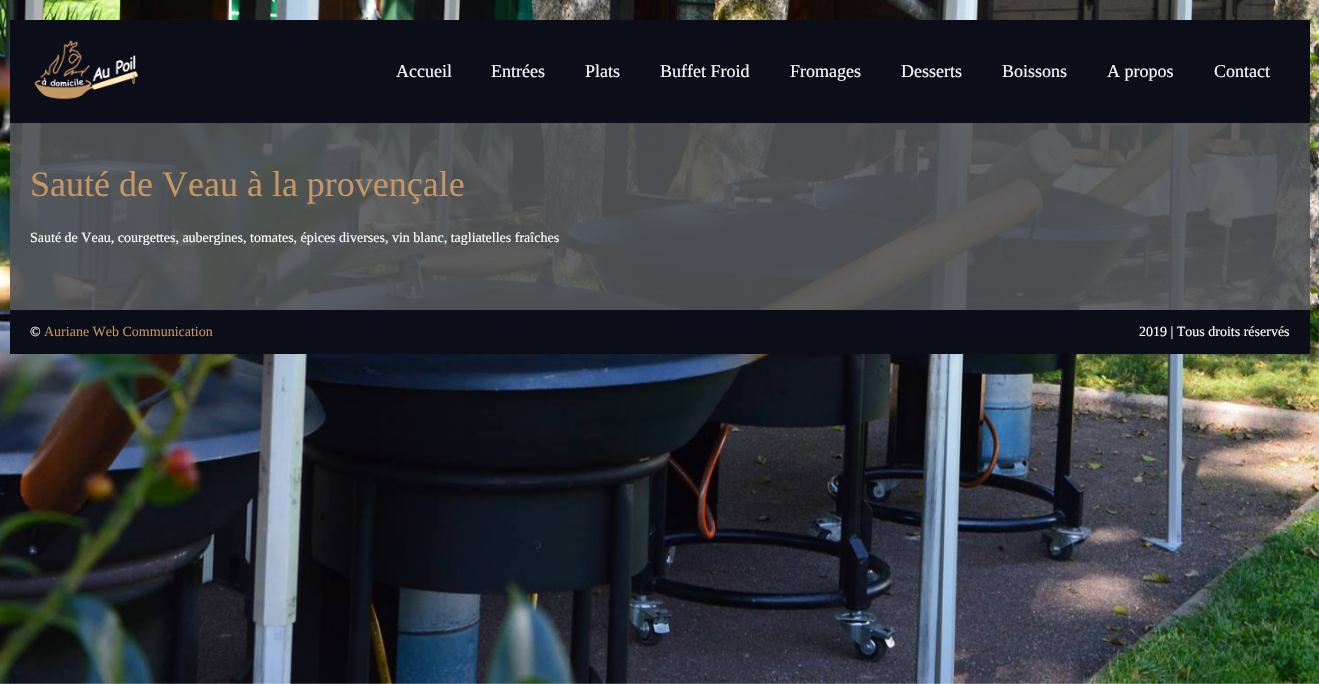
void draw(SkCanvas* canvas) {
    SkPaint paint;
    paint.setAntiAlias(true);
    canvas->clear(0xFFFFFFFF);
    canvas->drawImageRect(SkImages::DeferredFromEncodedData(SkData::MakeFromFileName("img1.png")), SkRect::MakeXYWH(0, 0, 1319, 684), SkSamplingOptions());
    paint.setColor(0xE6515356);
    canvas->drawRect(SkRect::MakeXYWH(10, 123, 1300, 187), paint);
    paint.setColor(0xFF0B0D19);
    canvas->drawRect(SkRect::MakeXYWH(10, 20, 1300, 103), paint);
    canvas->drawImageRect(SkImages::DeferredFromEncodedData(SkData::MakeFromFileName("img2.png")), SkRect::MakeXYWH(34, 40, 104, 60), SkSamplingOptions());
    SkFont font1(fontMgr->matchFamilyStyle("Liberation Serif", SkFontStyle::Normal()), 18);
    font1.setSubpixel(true);
    paint.setColor(0xFFFFFFFF);
    canvas->drawString("Accueil", 396, 77, font1, paint);
    canvas->drawString("Entrées", 491, 77, font1, paint);
    canvas->drawString("Plats", 585, 77, font1, paint);
    canvas->drawString("Buffet Froid", 660, 77, font1, paint);
    canvas->drawString("Fromages", 790, 77, font1, paint);
    canvas->drawString("Desserts", 901, 77, font1, paint);
    canvas->drawString("Boissons", 1002, 77, font1, paint);
    canvas->drawString("A propos", 1107, 77, font1, paint);
    canvas->drawString("Contact", 1214, 77, font1, paint);
    SkFont font2(fontMgr->matchFamilyStyle("Liberation Serif", SkFontStyle::Normal()), 36);
    font2.setSubpixel(true);
    paint.setColor(0xFFC49764);
    canvas->drawString("Sauté de Veau à la provençale", 30, 196, font2, paint);
    SkFont font3(fontMgr->matchFamilyStyle("Liberation Serif", SkFontStyle::Normal()), 14);
    font3.setSubpixel(true);
    paint.setColor(0xFFFFFFFF);
    canvas->drawString("Sauté de Veau, courgettes, aubergines, tomates, épices diverses, vin blanc, tagliatelles fraîches", 30, 242, font3, paint);
    paint.setColor(0xFF0B0D19);
    canvas->drawRect(SkRect::MakeXYWH(10, 310, 1300, 44), paint);
    paint.setColor(0xFFFFFFFF);
    canvas->drawString("©", 30, 336, font3, paint);
    paint.setColor(0xFFC49764);
    canvas->drawString("Auriane Web Communication", 44, 336, font3, paint);
    paint.setColor(0xFFFFFFFF);
    canvas->drawString("2019 | Tous droits réservés", 1139, 336, font3, paint);
}
